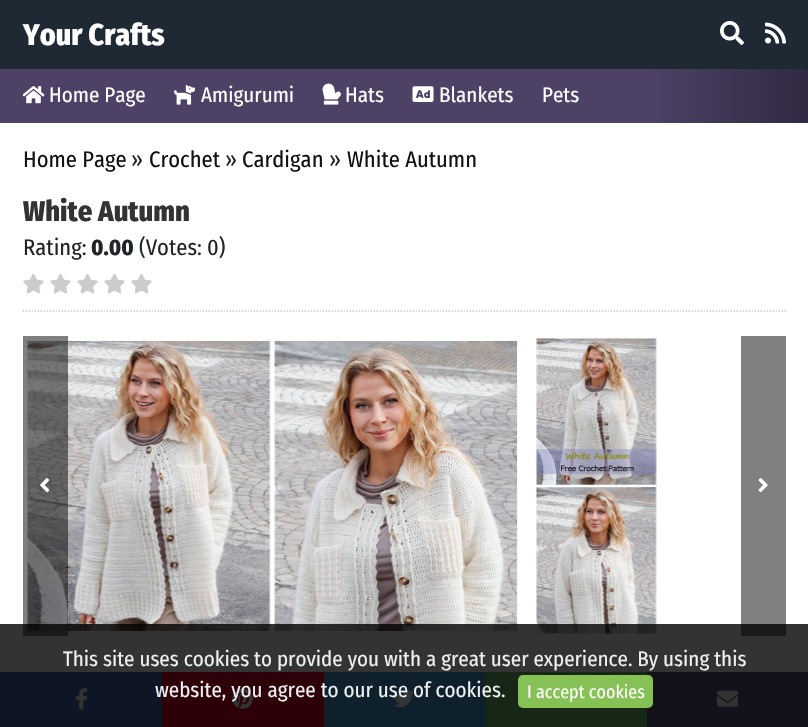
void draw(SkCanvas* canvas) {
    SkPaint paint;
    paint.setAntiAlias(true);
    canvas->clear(0xFFFFFFFF);
    paint.setColor(0xFF1E2933);
    canvas->drawRect(SkRect::MakeXYWH(0, 0, 808, 69), paint);
    SkFont font1(fontMgr->matchFamilyStyle("Fira Sans Condensed", SkFontStyle(800, SkFontStyle::kNormal_Width, SkFontStyle::kUpright_Slant)), 30);
    font1.setSubpixel(true);
    paint.setColor(0xFFFFFFFF);
    canvas->drawString("Your Crafts", 23, 45, font1, paint);
    canvas->drawImageRect(SkImages::DeferredFromEncodedData(SkData::MakeFromFileName("img1.png")), SkRect::MakeXYWH(720, 21, 24, 24), SkSamplingOptions());
    canvas->drawImageRect(SkImages::DeferredFromEncodedData(SkData::MakeFromFileName("img2.png")), SkRect::MakeXYWH(765, 22, 21, 22), SkSamplingOptions());
    {
        const SkColor colors[] = {0xFF312942, 0xFF4D4266};
        const float stops[] = {0, 0.2f};
        const SkPoint ends[] = {{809, 96}, {0, 96}};
        paint.setShader(SkGradientShader::MakeLinear(ends, colors, stops, 2, SkTileMode::kClamp));
        paint.setAlpha(255);
    }
    canvas->drawRect(SkRect::MakeXYWH(0, 69, 808, 54), paint);
    canvas->drawImageRect(SkImages::DeferredFromEncodedData(SkData::MakeFromFileName("img3.png")), SkRect::MakeXYWH(23, 86, 22, 18), SkSamplingOptions());
    SkFont font2(fontMgr->matchFamilyStyle("Fira Sans Condensed", SkFontStyle::Normal()), 21);
    font2.setSubpixel(true);
    paint.setShader(nullptr);
    paint.setColor(0xFFFFFFFF);
    canvas->drawString("Home Page", 49, 102, font2, paint);
    canvas->drawImageRect(SkImages::DeferredFromEncodedData(SkData::MakeFromFileName("img4.png")), SkRect::MakeXYWH(174, 84, 21, 21), SkSamplingOptions());
    canvas->drawString("Amigurumi", 201, 102, font2, paint);
    canvas->drawImageRect(SkImages::DeferredFromEncodedData(SkData::MakeFromFileName("img5.png")), SkRect::MakeXYWH(322, 83, 19, 22), SkSamplingOptions());
    canvas->drawString("Hats", 345, 102, font2, paint);
    canvas->drawImageRect(SkImages::DeferredFromEncodedData(SkData::MakeFromFileName("img6.png")), SkRect::MakeXYWH(412, 86, 22, 16), SkSamplingOptions());
    canvas->drawString("Blankets", 439, 102, font2, paint);
    canvas->drawString("Pets", 542, 102, font2, paint);
    SkFont font3(fontMgr->matchFamilyStyle("Fira Sans Condensed", SkFontStyle::Normal()), 22.5f);
    font3.setSubpixel(true);
    paint.setColor(0xFF111111);
    canvas->drawString("Home Page", 23, 167, font3, paint);
    paint.setColor(0xFF212529);
    canvas->drawString("»", 131, 167, font3, paint);
    paint.setColor(0xFF111111);
    canvas->drawString("Crochet", 149, 167, font3, paint);
    paint.setColor(0xFF212529);
    canvas->drawString("»", 225, 167, font3, paint);
    paint.setColor(0xFF111111);
    canvas->drawString("Cardigan", 242, 167, font3, paint);
    paint.setColor(0xFF212529);
    canvas->drawString("»", 329, 167, font3, paint);
    paint.setColor(0xFF111111);
    canvas->drawString("White Autumn", 347, 167, font3, paint);
    paint.setStyle(SkPaint::kStroke_Style);
    paint.setStrokeWidth(1.5f);
    paint.setColor(0xFFCCCCCC);
    paint.setPathEffect(SkDashPathEffect::Make({{1.5f, 1.5f}}, 0));
    canvas->drawPath(SkPathBuilder().moveTo(22.5f, 311).lineTo(786, 311).detach(), paint);
    paint.setPathEffect(nullptr);
    SkFont font4(fontMgr->matchFamilyStyle("Fira Sans Condensed", SkFontStyle(800, SkFontStyle::kNormal_Width, SkFontStyle::kUpright_Slant)), 28.5f);
    font4.setSubpixel(true);
    paint.setStyle(SkPaint::kFill_Style);
    paint.setColor(0xFF333333);
    canvas->drawString("White Autumn", 23, 221, font4, paint);
    paint.setColor(0xFF212529);
    canvas->drawString("Rating:", 23, 255, font3, paint);
    SkFont font5(fontMgr->matchFamilyStyle("Fira Sans Condensed", SkFontStyle(800, SkFontStyle::kNormal_Width, SkFontStyle::kUpright_Slant)), 22.5f);
    font5.setSubpixel(true);
    canvas->drawString("0.00", 91, 255, font5, paint);
    canvas->drawString("(Votes: 0)", 139, 255, font3, paint);
    canvas->drawImageRect(SkImages::DeferredFromEncodedData(SkData::MakeFromFileName("img7.png")), SkRect::MakeXYWH(23, 274, 21, 20), SkSamplingOptions());
    canvas->drawImageRect(SkImages::DeferredFromEncodedData(SkData::MakeFromFileName("img7.png")), SkRect::MakeXYWH(50, 274, 21, 20), SkSamplingOptions());
    canvas->drawImageRect(SkImages::DeferredFromEncodedData(SkData::MakeFromFileName("img7.png")), SkRect::MakeXYWH(77, 274, 21, 20), SkSamplingOptions());
    canvas->drawImageRect(SkImages::DeferredFromEncodedData(SkData::MakeFromFileName("img7.png")), SkRect::MakeXYWH(104, 274, 21, 20), SkSamplingOptions());
    canvas->drawImageRect(SkImages::DeferredFromEncodedData(SkData::MakeFromFileName("img7.png")), SkRect::MakeXYWH(131, 274, 21, 20), SkSamplingOptions());
    canvas->drawImageRect(SkImages::DeferredFromEncodedData(SkData::MakeFromFileName("img9.png")), SkRect::MakeXYWH(26, 336, 492, 296), SkSamplingOptions());
    paint.setColor(0x80000000);
    canvas->drawRect(SkRect::MakeXYWH(23, 336, 45, 300), paint);
    canvas->drawImageRect(SkImages::DeferredFromEncodedData(SkData::MakeFromFileName("img8.png")), SkRect::MakeXYWH(40, 478, 10, 15), SkSamplingOptions());
    canvas->drawImageRect(SkImages::DeferredFromEncodedData(SkData::MakeFromFileName("img10.png")), SkRect::MakeXYWH(534, 338, 123, 296), SkSamplingOptions());
    paint.setColor(0xFF808080);
    canvas->drawRect(SkRect::MakeXYWH(741, 336, 45, 300), paint);
    canvas->drawImageRect(SkImages::DeferredFromEncodedData(SkData::MakeFromFileName("img11.png")), SkRect::MakeXYWH(758, 478, 10, 15), SkSamplingOptions());
    paint.setColor(0xFF4267B2);
    canvas->drawRect(SkRect::MakeXYWH(0, 672, 162, 55), paint);
    canvas->drawImageRect(SkImages::DeferredFromEncodedData(SkData::MakeFromFileName("img12.png")), SkRect::MakeXYWH(75, 688, 13, 22), SkSamplingOptions());
    paint.setColor(0xFFE60023);
    canvas->drawRect(SkRect::MakeXYWH(162, 672, 162, 55), paint);
    canvas->drawImageRect(SkImages::DeferredFromEncodedData(SkData::MakeFromFileName("img13.png")), SkRect::MakeXYWH(232, 688, 21, 21), SkSamplingOptions());
    paint.setColor(0xFF429CD6);
    canvas->drawRect(SkRect::MakeXYWH(324, 672, 161, 55), paint);
    canvas->drawImageRect(SkImages::DeferredFromEncodedData(SkData::MakeFromFileName("img14.png")), SkRect::MakeXYWH(393, 690, 21, 18), SkSamplingOptions());
    paint.setColor(0xFF71C169);
    canvas->drawRect(SkRect::MakeXYWH(485, 672, 162, 55), paint);
    paint.setColor(0xFF5F5180);
    canvas->drawRect(SkRect::MakeXYWH(647, 672, 161, 55), paint);
    canvas->drawImageRect(SkImages::DeferredFromEncodedData(SkData::MakeFromFileName("img15.png")), SkRect::MakeXYWH(717, 690, 21, 17), SkSamplingOptions());
    paint.setColor(0xCC000000);
    canvas->drawRect(SkRect::MakeXYWH(0, 624, 808, 103), paint);
    paint.setColor(0xFFECF0F1);
    canvas->drawString("This site uses cookies to provide you with a great user experience. By using this", 63, 666, font2, paint);
    canvas->drawString("website, you agree to our use of cookies.", 155, 697, font2, paint);
    paint.setColor(0xFF85C154);
    canvas->drawRoundRect(SkRect::MakeXYWH(518, 675, 135, 33), 5, 5, paint);
    SkFont font6(fontMgr->matchFamilyStyle("Fira Sans Condensed", SkFontStyle::Normal()), 18);
    font6.setSubpixel(true);
    paint.setColor(0xFFFFFFFF);
    canvas->drawString("I accept cookies", 527, 698, font6, paint);
}
